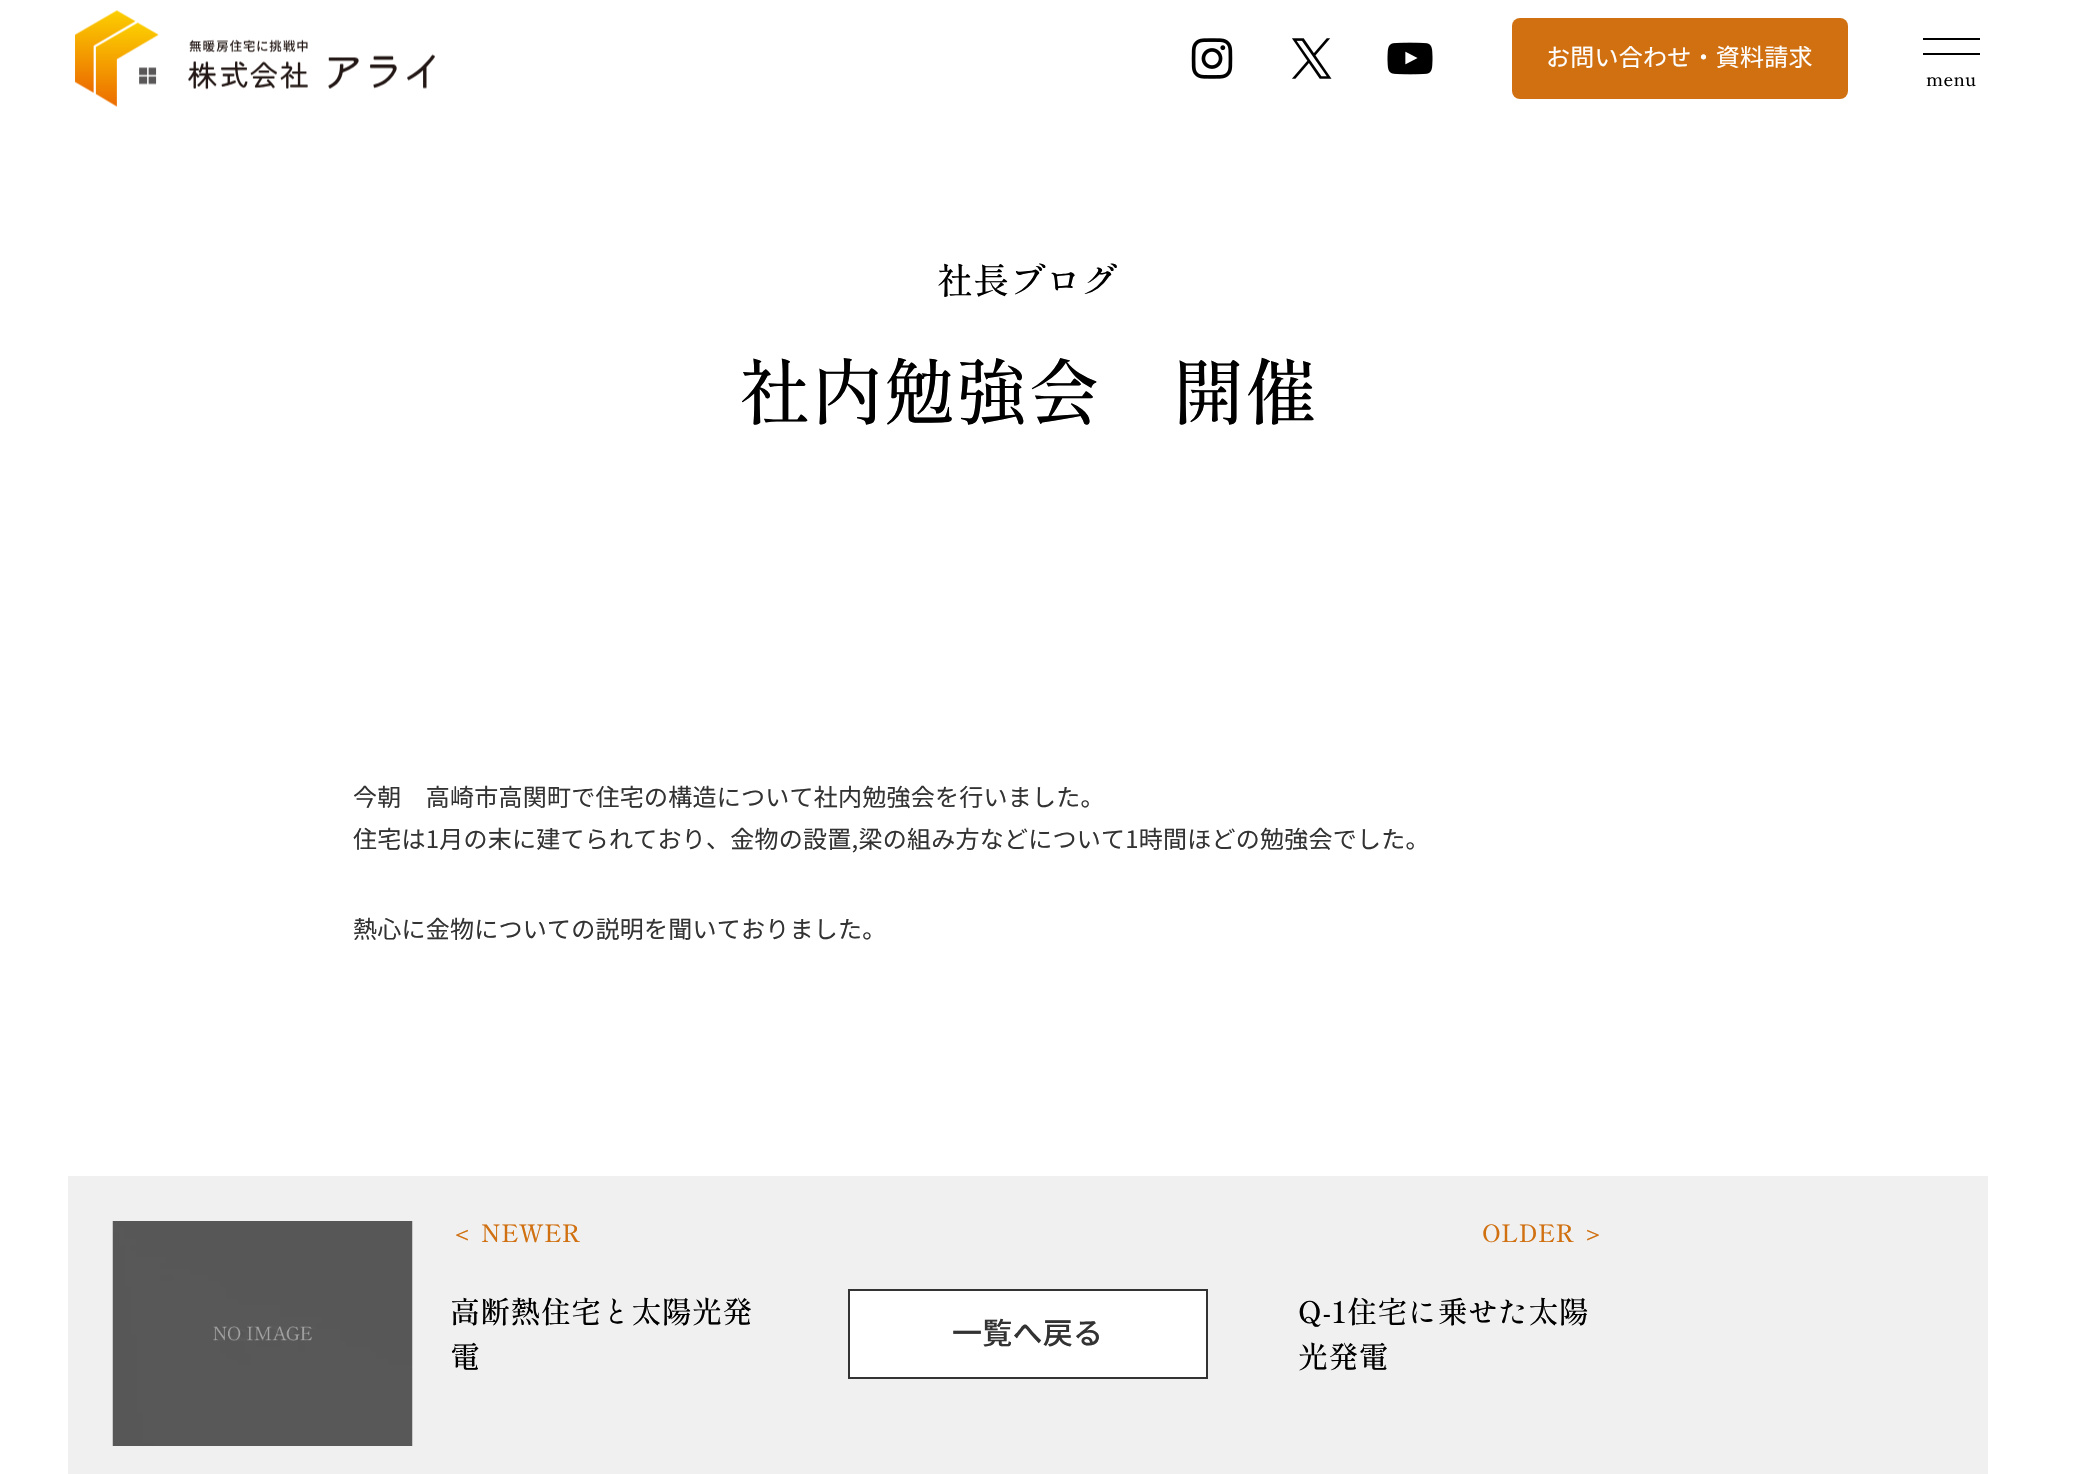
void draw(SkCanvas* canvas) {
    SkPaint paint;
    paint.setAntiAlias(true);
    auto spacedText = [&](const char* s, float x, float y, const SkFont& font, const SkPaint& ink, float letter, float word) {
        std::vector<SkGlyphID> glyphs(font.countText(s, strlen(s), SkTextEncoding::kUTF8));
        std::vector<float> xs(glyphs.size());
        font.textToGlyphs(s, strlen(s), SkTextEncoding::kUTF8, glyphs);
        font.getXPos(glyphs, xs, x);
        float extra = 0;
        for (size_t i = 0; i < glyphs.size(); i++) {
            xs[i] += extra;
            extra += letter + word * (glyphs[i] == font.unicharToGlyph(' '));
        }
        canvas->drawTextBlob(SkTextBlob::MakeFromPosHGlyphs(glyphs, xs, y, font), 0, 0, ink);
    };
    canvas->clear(0xFFFFFFFF);
    canvas->drawImageRect(SkImages::DeferredFromEncodedData(SkData::MakeFromFileName("img1.png")), SkRect::MakeXYWH(75, 10, 360, 97), SkSamplingOptions());
    canvas->drawImageRect(SkImages::DeferredFromEncodedData(SkData::MakeFromFileName("img2.png")), SkRect::MakeXYWH(1191, 38, 42, 41), SkSamplingOptions());
    canvas->drawImageRect(SkImages::DeferredFromEncodedData(SkData::MakeFromFileName("img3.png")), SkRect::MakeXYWH(1292, 38, 40, 41), SkSamplingOptions());
    canvas->drawImageRect(SkImages::DeferredFromEncodedData(SkData::MakeFromFileName("img4.png")), SkRect::MakeXYWH(1387, 42, 46, 33), SkSamplingOptions());
    paint.setColor(0xFFD07010);
    canvas->drawRoundRect(SkRect::MakeXYWH(1512, 18, 336, 81), 8, 8, paint);
    SkFont font1(fontMgr->matchFamilyStyle("Noto Sans JP", SkFontStyle::Normal()), 24);
    font1.setSubpixel(true);
    paint.setColor(0xFFFFFFFF);
    spacedText("お問い合わせ・資料請求", 1546, 66, font1, paint, 0.25f, 0);
    paint.setColor(0xFF000000);
    canvas->drawRect(SkRect::MakeXYWH(1923, 38, 57, 2), paint);
    canvas->drawRect(SkRect::MakeXYWH(1923, 53, 57, 2), paint);
    SkFont font2(fontMgr->matchFamilyStyle("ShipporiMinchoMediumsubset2", SkFontStyle(500, SkFontStyle::kNormal_Width, SkFontStyle::kUpright_Slant)), 18);
    font2.setSubpixel(true);
    spacedText("menu", 1926, 86, font2, paint, 0.25f, 0);
    SkFont font3(fontMgr->matchFamilyStyle("ShipporiMinchoMediumsubset2", SkFontStyle(500, SkFontStyle::kNormal_Width, SkFontStyle::kUpright_Slant)), 36);
    font3.setSubpixel(true);
    spacedText("社長ブログ", 937, 294, font3, paint, 0.25f, 0);
    SkFont font4(fontMgr->matchFamilyStyle("ShipporiMinchoMediumsubset2", SkFontStyle(500, SkFontStyle::kNormal_Width, SkFontStyle::kUpright_Slant)), 72);
    font4.setSubpixel(true);
    spacedText("社内勉強会　開催", 739, 419, font4, paint, 0.25f, 0);
    paint.setColor(0xFF333333);
    spacedText("今朝　高崎市高関町で住宅の構造について社内勉強会を行いました。", 353, 806, font1, paint, 0.25f, 0);
    spacedText("住宅は1月の末に建てられており、金物の設置,梁の組み方などについて1時間ほどの勉強会でした。", 353, 848, font1, paint, 0.25f, 0);
    spacedText("熱心に金物についての説明を聞いておりました。", 353, 938, font1, paint, 0.25f, 0);
    paint.setColor(0xFFF0F0F0);
    canvas->drawRect(SkRect::MakeXYWH(68, 1176, 1920, 298), paint);
    SkFont font5(fontMgr->matchFamilyStyle("WenQuanYi Zen Hei", SkFontStyle(500, SkFontStyle::kNormal_Width, SkFontStyle::kUpright_Slant)), 24);
    font5.setSubpixel(true);
    paint.setColor(0xFFD07010);
    spacedText("＜", 450, 1242, font5, paint, 0.25f, 0);
    SkFont font6(fontMgr->matchFamilyStyle("ShipporiMinchoMediumsubset2", SkFontStyle(500, SkFontStyle::kNormal_Width, SkFontStyle::kUpright_Slant)), 24);
    font6.setSubpixel(true);
    spacedText("NEWER", 481, 1242, font6, paint, 0.25f, 0);
    canvas->drawImageRect(SkImages::DeferredFromEncodedData(SkData::MakeFromFileName("img5.png")), SkRect::MakeXYWH(112, 1221, 301, 225), SkSamplingOptions());
    SkFont font7(fontMgr->matchFamilyStyle("ShipporiMinchoMediumsubset2", SkFontStyle(500, SkFontStyle::kNormal_Width, SkFontStyle::kUpright_Slant)), 30);
    font7.setSubpixel(true);
    paint.setColor(0xFF000000);
    spacedText("高断熱住宅と太陽光発", 450, 1323, font7, paint, 0.25f, 0);
    spacedText("電", 450, 1368, font7, paint, 0.25f, 0);
    paint.setColor(0xFFD07010);
    spacedText("OLDER", 1482, 1242, font6, paint, 0.25f, 0);
    spacedText("＞", 1581, 1242, font5, paint, 0.25f, 0);
    paint.setColor(0xFF000000);
    spacedText("Q-1住宅に乗せた太陽", 1298, 1323, font7, paint, 0.25f, 0);
    spacedText("光発電", 1298, 1368, font7, paint, 0.25f, 0);
    paint.setColor(0xFFFFFFFF);
    canvas->drawRect(SkRect::MakeXYWH(849, 1290, 358, 88), paint);
    paint.setStyle(SkPaint::kStroke_Style);
    paint.setStrokeWidth(2);
    paint.setColor(0xFF333333);
    canvas->drawRect(SkRect::MakeXYWH(849, 1290, 358, 88), paint);
    SkFont font8(fontMgr->matchFamilyStyle("Noto Sans JP", SkFontStyle(500, SkFontStyle::kNormal_Width, SkFontStyle::kUpright_Slant)), 30);
    font8.setSubpixel(true);
    paint.setStyle(SkPaint::kFill_Style);
    spacedText("一覧へ戻る", 952, 1344, font8, paint, 0.25f, 0);
}
